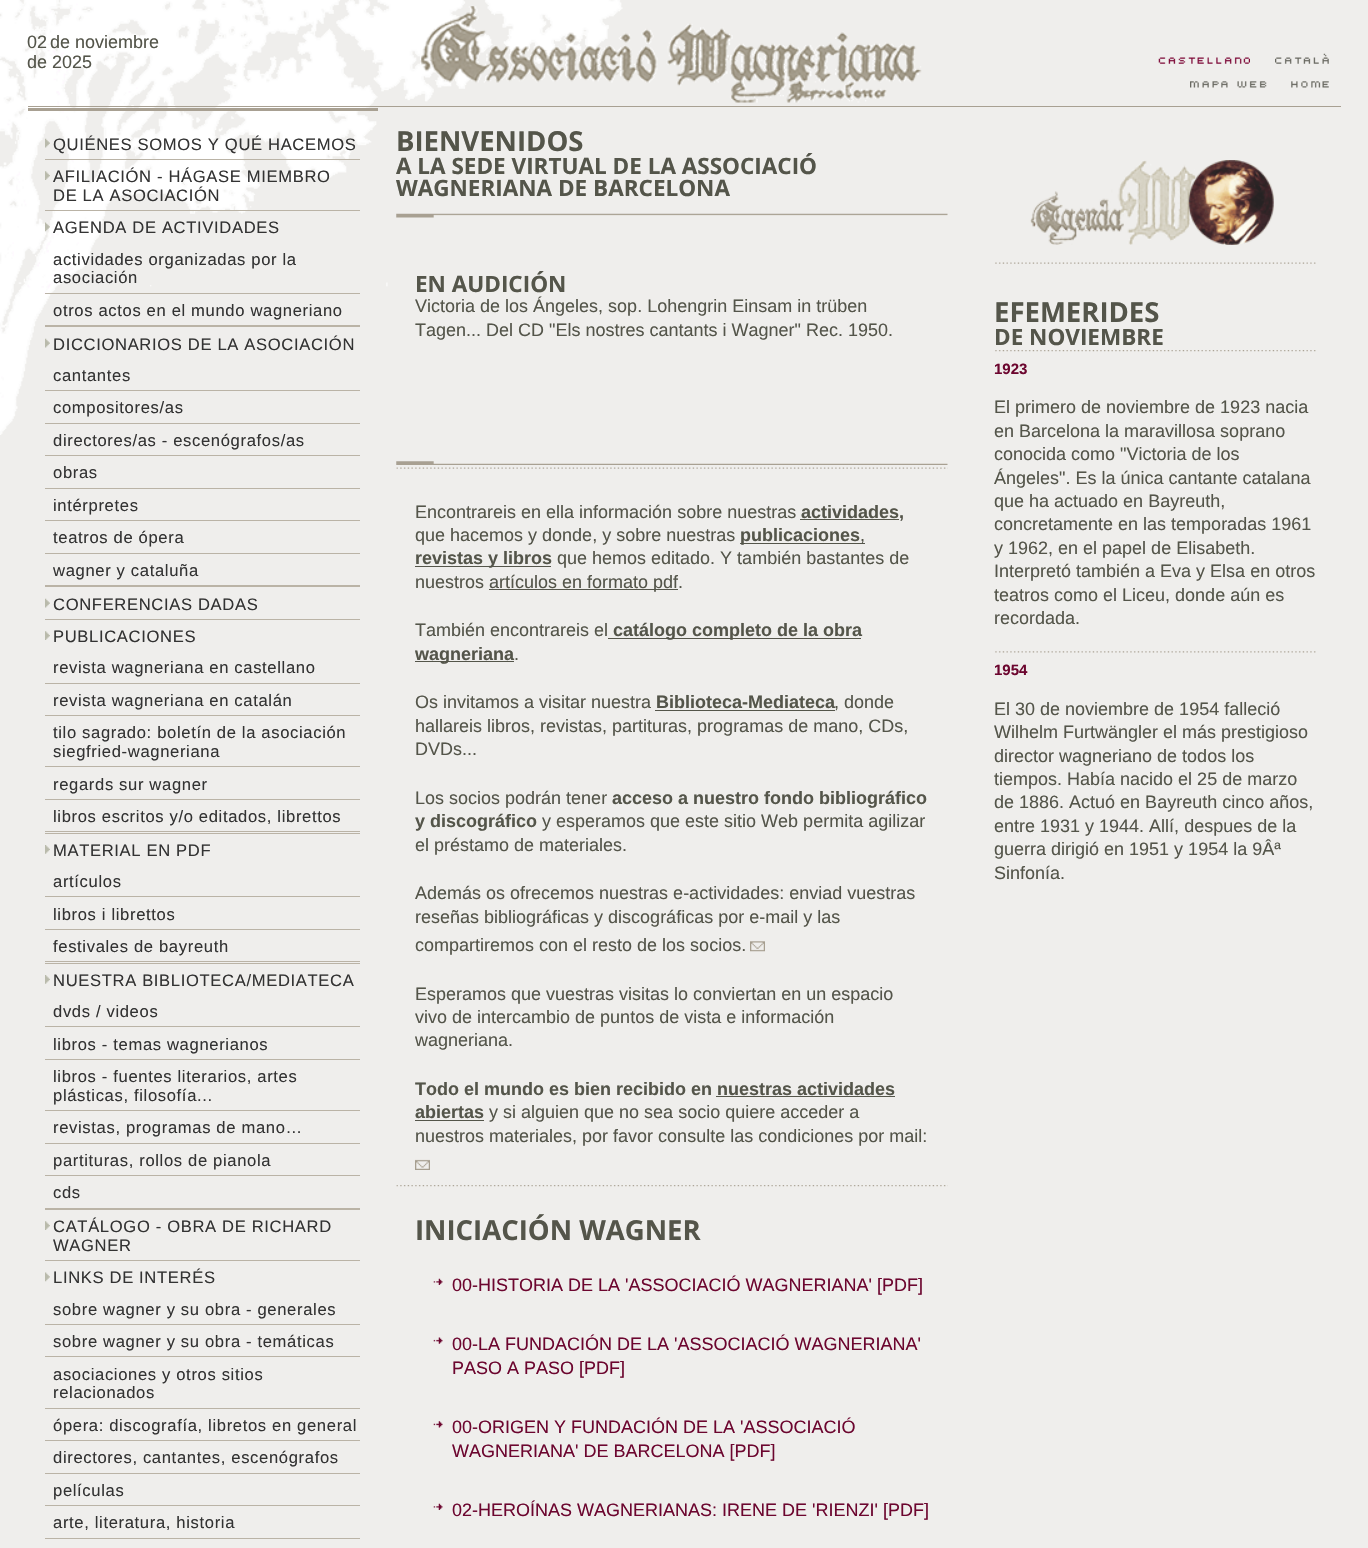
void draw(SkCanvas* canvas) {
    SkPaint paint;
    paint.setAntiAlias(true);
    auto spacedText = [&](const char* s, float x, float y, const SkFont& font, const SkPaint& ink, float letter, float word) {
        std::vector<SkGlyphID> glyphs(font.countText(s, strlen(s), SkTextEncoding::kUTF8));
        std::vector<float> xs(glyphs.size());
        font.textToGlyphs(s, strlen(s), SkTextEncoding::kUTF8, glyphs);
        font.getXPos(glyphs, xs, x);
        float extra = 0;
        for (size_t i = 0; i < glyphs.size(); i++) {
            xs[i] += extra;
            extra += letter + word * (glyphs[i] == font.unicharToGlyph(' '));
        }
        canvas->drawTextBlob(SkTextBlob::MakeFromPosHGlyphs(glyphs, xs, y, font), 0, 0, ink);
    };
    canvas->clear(0xFFEFEEEC);
    canvas->drawImageRect(SkImages::DeferredFromEncodedData(SkData::MakeFromFileName("img1.png")), SkRect::MakeXYWH(0, 0, 623, 435), SkSamplingOptions());
    SkFont font1(fontMgr->matchFamilyStyle("Liberation Sans", SkFontStyle::Normal()), 18);
    font1.setSubpixel(true);
    paint.setColor(0xFF54554A);
    canvas->drawString("02", 27, 48, font1, paint);
    canvas->drawString("de noviembre", 50, 48, font1, paint);
    canvas->drawString("de 2025", 27, 68, font1, paint);
    canvas->drawImageRect(SkImages::DeferredFromEncodedData(SkData::MakeFromFileName("img2.png")), SkRect::MakeXYWH(421, 6, 501, 97), SkSamplingOptions());
    canvas->drawImageRect(SkImages::DeferredFromEncodedData(SkData::MakeFromFileName("img3.png")), SkRect::MakeXYWH(1158, 57, 92, 7), SkSamplingOptions());
    canvas->drawImageRect(SkImages::DeferredFromEncodedData(SkData::MakeFromFileName("img4.png")), SkRect::MakeXYWH(1275, 53, 54, 11), SkSamplingOptions());
    canvas->drawImageRect(SkImages::DeferredFromEncodedData(SkData::MakeFromFileName("img5.png")), SkRect::MakeXYWH(1190, 81, 77, 7), SkSamplingOptions());
    canvas->drawImageRect(SkImages::DeferredFromEncodedData(SkData::MakeFromFileName("img6.png")), SkRect::MakeXYWH(1291, 81, 38, 7), SkSamplingOptions());
    paint.setColor(0xFFA8A092);
    canvas->drawRect(SkRect::MakeXYWH(28, 106, 1313, 1), paint);
    canvas->drawRect(SkRect::MakeXYWH(28, 108, 350, 3), paint);
    paint.setColor(0xFFBAB3A6);
    canvas->drawRect(SkRect::MakeXYWH(45, 159, 315, 1), paint);
    canvas->drawImageRect(SkImages::DeferredFromEncodedData(SkData::MakeFromFileName("img7.png")), SkRect::MakeXYWH(45, 138, 5, 10), SkSamplingOptions());
    SkFont font2(fontMgr->matchFamilyStyle("Liberation Sans", SkFontStyle::Normal()), 16.6f);
    font2.setSubpixel(true);
    paint.setColor(0xFF333333);
    spacedText("QUIÉNES SOMOS Y QUÉ HACEMOS", 53, 150, font2, paint, 0.65f, 0);
    paint.setColor(0xFFBAB3A6);
    canvas->drawRect(SkRect::MakeXYWH(45, 210, 315, 1), paint);
    canvas->drawImageRect(SkImages::DeferredFromEncodedData(SkData::MakeFromFileName("img8.png")), SkRect::MakeXYWH(45, 171, 5, 9), SkSamplingOptions());
    paint.setColor(0xFF333333);
    spacedText("AFILIACIÓN - HÁGASE MIEMBRO", 53, 182, font2, paint, 0.65f, 0);
    spacedText("DE LA ASOCIACIÓN", 53, 201, font2, paint, 0.65f, 0);
    paint.setColor(0xFFBAB3A6);
    canvas->drawRect(SkRect::MakeXYWH(45, 325, 315, 2), paint);
    canvas->drawImageRect(SkImages::DeferredFromEncodedData(SkData::MakeFromFileName("img9.png")), SkRect::MakeXYWH(45, 222, 5, 10), SkSamplingOptions());
    paint.setColor(0xFF333333);
    spacedText("AGENDA DE ACTIVIDADES", 53, 233, font2, paint, 0.65f, 0);
    paint.setColor(0xFFBAB3A6);
    canvas->drawRect(SkRect::MakeXYWH(45, 293, 315, 1), paint);
    paint.setColor(0xFF333333);
    spacedText("actividades organizadas por la", 53, 265, font2, paint, 0.65f, 0);
    spacedText("asociación", 53, 283, font2, paint, 0.65f, 0);
    spacedText("otros actos en el mundo wagneriano", 53, 316, font2, paint, 0.65f, 0);
    paint.setColor(0xFFBAB3A6);
    canvas->drawRect(SkRect::MakeXYWH(45, 585, 315, 2), paint);
    canvas->drawImageRect(SkImages::DeferredFromEncodedData(SkData::MakeFromFileName("img7.png")), SkRect::MakeXYWH(45, 338, 5, 10), SkSamplingOptions());
    paint.setColor(0xFF333333);
    spacedText("DICCIONARIOS DE LA ASOCIACIÓN", 53, 350, font2, paint, 0.65f, 0);
    paint.setColor(0xFFBAB3A6);
    canvas->drawRect(SkRect::MakeXYWH(45, 390, 315, 1), paint);
    paint.setColor(0xFF333333);
    spacedText("cantantes", 53, 381, font2, paint, 0.65f, 0);
    paint.setColor(0xFFBAB3A6);
    canvas->drawRect(SkRect::MakeXYWH(45, 423, 315, 1), paint);
    paint.setColor(0xFF333333);
    spacedText("compositores/as", 53, 413, font2, paint, 0.65f, 0);
    paint.setColor(0xFFBAB3A6);
    canvas->drawRect(SkRect::MakeXYWH(45, 455, 315, 1), paint);
    paint.setColor(0xFF333333);
    spacedText("directores/as - escenógrafos/as", 53, 446, font2, paint, 0.65f, 0);
    paint.setColor(0xFFBAB3A6);
    canvas->drawRect(SkRect::MakeXYWH(45, 488, 315, 1), paint);
    paint.setColor(0xFF333333);
    spacedText("obras", 53, 478, font2, paint, 0.65f, 0);
    paint.setColor(0xFFBAB3A6);
    canvas->drawRect(SkRect::MakeXYWH(45, 520, 315, 1), paint);
    paint.setColor(0xFF333333);
    spacedText("intérpretes", 53, 511, font2, paint, 0.65f, 0);
    paint.setColor(0xFFBAB3A6);
    canvas->drawRect(SkRect::MakeXYWH(45, 553, 315, 1), paint);
    paint.setColor(0xFF333333);
    spacedText("teatros de ópera", 53, 543, font2, paint, 0.65f, 0);
    spacedText("wagner y cataluña", 53, 576, font2, paint, 0.65f, 0);
    paint.setColor(0xFFBAB3A6);
    canvas->drawRect(SkRect::MakeXYWH(45, 619, 315, 1), paint);
    canvas->drawImageRect(SkImages::DeferredFromEncodedData(SkData::MakeFromFileName("img7.png")), SkRect::MakeXYWH(45, 598, 5, 10), SkSamplingOptions());
    paint.setColor(0xFF333333);
    spacedText("CONFERENCIAS DADAS", 53, 610, font2, paint, 0.65f, 0);
    paint.setColor(0xFFBAB3A6);
    canvas->drawRect(SkRect::MakeXYWH(45, 833, 315, 1), paint);
    canvas->drawImageRect(SkImages::DeferredFromEncodedData(SkData::MakeFromFileName("img8.png")), SkRect::MakeXYWH(45, 631, 5, 9), SkSamplingOptions());
    paint.setColor(0xFF333333);
    spacedText("PUBLICACIONES", 53, 642, font2, paint, 0.65f, 0);
    paint.setColor(0xFFBAB3A6);
    canvas->drawRect(SkRect::MakeXYWH(45, 683, 315, 1), paint);
    paint.setColor(0xFF333333);
    spacedText("revista wagneriana en castellano", 53, 673, font2, paint, 0.65f, 0);
    paint.setColor(0xFFBAB3A6);
    canvas->drawRect(SkRect::MakeXYWH(45, 715, 315, 1), paint);
    paint.setColor(0xFF333333);
    spacedText("revista wagneriana en catalán", 53, 706, font2, paint, 0.65f, 0);
    paint.setColor(0xFFBAB3A6);
    canvas->drawRect(SkRect::MakeXYWH(45, 766, 315, 1), paint);
    paint.setColor(0xFF333333);
    spacedText("tilo sagrado: boletín de la asociación", 53, 738, font2, paint, 0.65f, 0);
    spacedText("siegfried-wagneriana", 53, 757, font2, paint, 0.65f, 0);
    paint.setColor(0xFFBAB3A6);
    canvas->drawRect(SkRect::MakeXYWH(45, 799, 315, 1), paint);
    paint.setColor(0xFF333333);
    spacedText("regards sur wagner", 53, 790, font2, paint, 0.65f, 0);
    paint.setColor(0xFFBAB3A6);
    canvas->drawRect(SkRect::MakeXYWH(45, 831, 315, 1), paint);
    paint.setColor(0xFF333333);
    spacedText("libros escritos y/o editados, librettos", 53, 822, font2, paint, 0.65f, 0);
    paint.setColor(0xFFBAB3A6);
    canvas->drawRect(SkRect::MakeXYWH(45, 963, 315, 1), paint);
    canvas->drawImageRect(SkImages::DeferredFromEncodedData(SkData::MakeFromFileName("img10.png")), SkRect::MakeXYWH(45, 845, 5, 9), SkSamplingOptions());
    paint.setColor(0xFF333333);
    spacedText("MATERIAL EN PDF", 53, 856, font2, paint, 0.65f, 0);
    paint.setColor(0xFFBAB3A6);
    canvas->drawRect(SkRect::MakeXYWH(45, 896, 315, 1), paint);
    paint.setColor(0xFF333333);
    spacedText("artículos", 53, 887, font2, paint, 0.65f, 0);
    paint.setColor(0xFFBAB3A6);
    canvas->drawRect(SkRect::MakeXYWH(45, 929, 315, 1), paint);
    paint.setColor(0xFF333333);
    spacedText("libros i librettos", 53, 920, font2, paint, 0.65f, 0);
    paint.setColor(0xFFBAB3A6);
    canvas->drawRect(SkRect::MakeXYWH(45, 961, 315, 1), paint);
    paint.setColor(0xFF333333);
    spacedText("festivales de bayreuth", 53, 952, font2, paint, 0.65f, 0);
    paint.setColor(0xFFBAB3A6);
    canvas->drawRect(SkRect::MakeXYWH(45, 1208, 315, 2), paint);
    canvas->drawImageRect(SkImages::DeferredFromEncodedData(SkData::MakeFromFileName("img10.png")), SkRect::MakeXYWH(45, 975, 5, 9), SkSamplingOptions());
    paint.setColor(0xFF333333);
    spacedText("NUESTRA BIBLIOTECA/MEDIATECA", 53, 986, font2, paint, 0.65f, 0);
    paint.setColor(0xFFBAB3A6);
    canvas->drawRect(SkRect::MakeXYWH(45, 1026, 315, 1), paint);
    paint.setColor(0xFF333333);
    spacedText("dvds / videos", 53, 1017, font2, paint, 0.65f, 0);
    paint.setColor(0xFFBAB3A6);
    canvas->drawRect(SkRect::MakeXYWH(45, 1059, 315, 1), paint);
    paint.setColor(0xFF333333);
    spacedText("libros - temas wagnerianos", 53, 1050, font2, paint, 0.65f, 0);
    paint.setColor(0xFFBAB3A6);
    canvas->drawRect(SkRect::MakeXYWH(45, 1110, 315, 1), paint);
    paint.setColor(0xFF333333);
    spacedText("libros - fuentes literarios, artes", 53, 1082, font2, paint, 0.65f, 0);
    spacedText("plásticas, filosofía...", 53, 1101, font2, paint, 0.65f, 0);
    paint.setColor(0xFFBAB3A6);
    canvas->drawRect(SkRect::MakeXYWH(45, 1143, 315, 1), paint);
    paint.setColor(0xFF333333);
    spacedText("revistas, programas de mano…", 53, 1133, font2, paint, 0.65f, 0);
    paint.setColor(0xFFBAB3A6);
    canvas->drawRect(SkRect::MakeXYWH(45, 1175, 315, 1), paint);
    paint.setColor(0xFF333333);
    spacedText("partituras, rollos de pianola", 53, 1166, font2, paint, 0.65f, 0);
    spacedText("cds", 53, 1198, font2, paint, 0.65f, 0);
    paint.setColor(0xFFBAB3A6);
    canvas->drawRect(SkRect::MakeXYWH(45, 1260, 315, 1), paint);
    canvas->drawImageRect(SkImages::DeferredFromEncodedData(SkData::MakeFromFileName("img8.png")), SkRect::MakeXYWH(45, 1221, 5, 9), SkSamplingOptions());
    paint.setColor(0xFF333333);
    spacedText("CATÁLOGO - OBRA DE RICHARD", 53, 1232, font2, paint, 0.65f, 0);
    spacedText("WAGNER", 53, 1251, font2, paint, 0.65f, 0);
    canvas->drawImageRect(SkImages::DeferredFromEncodedData(SkData::MakeFromFileName("img11.png")), SkRect::MakeXYWH(45, 1272, 5, 10), SkSamplingOptions());
    spacedText("LINKS DE INTERÉS", 53, 1283, font2, paint, 0.65f, 0);
    paint.setColor(0xFFBAB3A6);
    canvas->drawRect(SkRect::MakeXYWH(45, 1324, 315, 1), paint);
    paint.setColor(0xFF333333);
    spacedText("sobre wagner y su obra - generales", 53, 1315, font2, paint, 0.65f, 0);
    paint.setColor(0xFFBAB3A6);
    canvas->drawRect(SkRect::MakeXYWH(45, 1356, 315, 1), paint);
    paint.setColor(0xFF333333);
    spacedText("sobre wagner y su obra - temáticas", 53, 1347, font2, paint, 0.65f, 0);
    paint.setColor(0xFFBAB3A6);
    canvas->drawRect(SkRect::MakeXYWH(45, 1408, 315, 1), paint);
    paint.setColor(0xFF333333);
    spacedText("asociaciones y otros sitios", 53, 1380, font2, paint, 0.65f, 0);
    spacedText("relacionados", 53, 1398, font2, paint, 0.65f, 0);
    paint.setColor(0xFFBAB3A6);
    canvas->drawRect(SkRect::MakeXYWH(45, 1440, 315, 1), paint);
    paint.setColor(0xFF333333);
    spacedText("ópera: discografía, libretos en general", 53, 1431, font2, paint, 0.65f, 0);
    paint.setColor(0xFFBAB3A6);
    canvas->drawRect(SkRect::MakeXYWH(45, 1473, 315, 1), paint);
    paint.setColor(0xFF333333);
    spacedText("directores, cantantes, escenógrafos", 53, 1463, font2, paint, 0.65f, 0);
    paint.setColor(0xFFBAB3A6);
    canvas->drawRect(SkRect::MakeXYWH(45, 1505, 315, 1), paint);
    paint.setColor(0xFF333333);
    spacedText("películas", 53, 1496, font2, paint, 0.65f, 0);
    paint.setColor(0xFFBAB3A6);
    canvas->drawRect(SkRect::MakeXYWH(45, 1538, 315, 1), paint);
    paint.setColor(0xFF333333);
    spacedText("arte, literatura, historia", 53, 1528, font2, paint, 0.65f, 0);
    canvas->drawImageRect(SkImages::DeferredFromEncodedData(SkData::MakeFromFileName("img12.png")), SkRect::MakeXYWH(396, 213, 552, 5), SkSamplingOptions());
    SkFont font3(fontMgr->matchFamilyStyle("Open Sans", SkFontStyle::Bold()), 27.5f);
    font3.setSubpixel(true);
    paint.setColor(0xFF54554A);
    canvas->drawString("BIENVENIDOS", 396, 151, font3, paint);
    SkFont font4(fontMgr->matchFamilyStyle("Open Sans", SkFontStyle::Bold()), 22.5f);
    font4.setSubpixel(true);
    canvas->drawString("A LA SEDE VIRTUAL DE LA ASSOCIACIÓ", 396, 174, font4, paint);
    canvas->drawString("WAGNERIANA DE BARCELONA", 396, 196, font4, paint);
    canvas->drawImageRect(SkImages::DeferredFromEncodedData(SkData::MakeFromFileName("img13.png")), SkRect::MakeXYWH(396, 461, 552, 4), SkSamplingOptions());
    canvas->drawString("EN AUDICIÓN", 415, 292, font4, paint);
    canvas->drawString("Victoria de los Ángeles, sop. Lohengrin Einsam in trüben", 415, 312, font1, paint);
    canvas->drawString("Tagen... Del CD \"Els nostres cantants i Wagner\" Rec. 1950.", 415, 336, font1, paint);
    canvas->drawImageRect(SkImages::DeferredFromEncodedData(SkData::MakeFromFileName("img14.png")), SkRect::MakeXYWH(396, 467, 552, 2), SkSamplingOptions());
    canvas->drawString("Encontrareis en ella información sobre nuestras", 415, 518, font1, paint);
    canvas->drawRect(SkRect::MakeXYWH(800, 519, 99, 1), paint);
    SkFont font5(fontMgr->matchFamilyStyle("Liberation Sans", SkFontStyle::Bold()), 18);
    font5.setSubpixel(true);
    canvas->drawString("actividades,", 801, 518, font5, paint);
    canvas->drawString("que hacemos y donde, y sobre nuestras", 415, 541, font1, paint);
    canvas->drawRect(SkRect::MakeXYWH(740, 543, 125, 1), paint);
    canvas->drawString("publicaciones", 740, 541, font5, paint);
    canvas->drawString(",", 860, 541, font1, paint);
    canvas->drawRect(SkRect::MakeXYWH(415, 566, 136, 1), paint);
    canvas->drawString("revistas y libros", 415, 564, font5, paint);
    canvas->drawString("que hemos editado. Y también bastantes de", 557, 564, font1, paint);
    canvas->drawString("nuestros", 415, 588, font1, paint);
    canvas->drawRect(SkRect::MakeXYWH(489, 589, 189, 1), paint);
    canvas->drawString("artículos en formato pdf.", 489, 588, font1, paint);
    canvas->drawString("También encontrareis el", 415, 636, font1, paint);
    canvas->drawRect(SkRect::MakeXYWH(608, 638, 253, 1), paint);
    canvas->drawString("catálogo completo de la obra", 613, 636, font5, paint);
    canvas->drawRect(SkRect::MakeXYWH(415, 661, 99, 1), paint);
    canvas->drawString("wagneriana", 415, 660, font5, paint);
    canvas->drawString(".", 514, 660, font1, paint);
    canvas->drawString("Os invitamos a visitar nuestra", 415, 708, font1, paint);
    canvas->drawString("Biblioteca-Mediateca", 656, 708, font5, paint);
    canvas->drawRect(SkRect::MakeXYWH(655, 710, 180, 1), paint);
    canvas->drawString(", donde", 834, 708, font1, paint);
    canvas->drawString("hallareis libros, revistas, partituras, programas de mano, CDs,", 415, 732, font1, paint);
    canvas->drawString("DVDs...", 415, 755, font1, paint);
    canvas->drawString("Los socios podrán tener", 415, 804, font1, paint);
    canvas->drawString("acceso a nuestro fondo bibliográfico", 612, 804, font5, paint);
    canvas->drawString("y discográfico", 415, 827, font5, paint);
    canvas->drawString("y esperamos que este sitio Web permita agilizar", 542, 827, font1, paint);
    canvas->drawString("el préstamo de materiales.", 415, 851, font1, paint);
    canvas->drawString("Además os ofrecemos nuestras e-actividades: enviad vuestras", 415, 899, font1, paint);
    canvas->drawString("reseñas bibliográficas y discográficas por e-mail y las", 415, 923, font1, paint);
    canvas->drawString("compartiremos con el resto de los socios.", 415, 951, font1, paint);
    canvas->drawImageRect(SkImages::DeferredFromEncodedData(SkData::MakeFromFileName("img15.png")), SkRect::MakeXYWH(750, 941, 15, 11), SkSamplingOptions());
    canvas->drawString("Esperamos que vuestras visitas lo conviertan en un espacio", 415, 1000, font1, paint);
    canvas->drawString("vivo de intercambio de puntos de vista e información", 415, 1023, font1, paint);
    canvas->drawString("wagneriana.", 415, 1046, font1, paint);
    canvas->drawString("Todo el mundo es bien recibido en nuestras actividades", 415, 1095, font5, paint);
    canvas->drawRect(SkRect::MakeXYWH(716, 1096, 179, 1), paint);
    canvas->drawString("abiertas", 415, 1118, font5, paint);
    canvas->drawRect(SkRect::MakeXYWH(415, 1120, 69, 1), paint);
    canvas->drawString("y si alguien que no sea socio quiere acceder a", 489, 1118, font1, paint);
    canvas->drawString("nuestros materiales, por favor consulte las condiciones por mail:", 415, 1142, font1, paint);
    canvas->drawImageRect(SkImages::DeferredFromEncodedData(SkData::MakeFromFileName("img16.png")), SkRect::MakeXYWH(415, 1159, 15, 11), SkSamplingOptions());
    canvas->drawImageRect(SkImages::DeferredFromEncodedData(SkData::MakeFromFileName("img17.png")), SkRect::MakeXYWH(396, 1185, 552, 2), SkSamplingOptions());
    canvas->drawString("INICIACIÓN WAGNER", 415, 1240, font3, paint);
    canvas->drawImageRect(SkImages::DeferredFromEncodedData(SkData::MakeFromFileName("img18.png")), SkRect::MakeXYWH(433, 1278, 10, 7), SkSamplingOptions());
    paint.setColor(0xFF6C062F);
    canvas->drawString("00-HISTORIA DE LA 'ASSOCIACIÓ WAGNERIANA' [PDF]", 452, 1291, font1, paint);
    canvas->drawImageRect(SkImages::DeferredFromEncodedData(SkData::MakeFromFileName("img19.png")), SkRect::MakeXYWH(433, 1337, 10, 7), SkSamplingOptions());
    canvas->drawString("00-LA FUNDACIÓN DE LA 'ASSOCIACIÓ WAGNERIANA'", 452, 1350, font1, paint);
    canvas->drawString("PASO A PASO [PDF]", 452, 1374, font1, paint);
    canvas->drawImageRect(SkImages::DeferredFromEncodedData(SkData::MakeFromFileName("img20.png")), SkRect::MakeXYWH(433, 1421, 10, 7), SkSamplingOptions());
    canvas->drawString("00-ORIGEN Y FUNDACIÓN DE LA 'ASSOCIACIÓ", 452, 1433, font1, paint);
    canvas->drawString("WAGNERIANA' DE BARCELONA [PDF]", 452, 1457, font1, paint);
    canvas->drawImageRect(SkImages::DeferredFromEncodedData(SkData::MakeFromFileName("img18.png")), SkRect::MakeXYWH(433, 1503, 10, 7), SkSamplingOptions());
    canvas->drawString("02-HEROÍNAS WAGNERIANAS: IRENE DE 'RIENZI' [PDF]", 452, 1516, font1, paint);
    canvas->drawImageRect(SkImages::DeferredFromEncodedData(SkData::MakeFromFileName("img21.png")), SkRect::MakeXYWH(995, 262, 321, 2), SkSamplingOptions());
    canvas->drawImageRect(SkImages::DeferredFromEncodedData(SkData::MakeFromFileName("img22.png")), SkRect::MakeXYWH(1030, 160, 244, 85), SkSamplingOptions());
    paint.setColor(0xFF54554A);
    canvas->drawString("EFEMERIDES", 994, 322, font3, paint);
    canvas->drawString("DE NOVIEMBRE", 994, 345, font4, paint);
    canvas->drawImageRect(SkImages::DeferredFromEncodedData(SkData::MakeFromFileName("img23.png")), SkRect::MakeXYWH(995, 350, 321, 2), SkSamplingOptions());
    SkFont font6(fontMgr->matchFamilyStyle("Liberation Sans", SkFontStyle::Bold()), 15);
    font6.setSubpixel(true);
    paint.setColor(0xFF6C062F);
    canvas->drawString("1923", 994, 374, font6, paint);
    paint.setColor(0xFF54554A);
    canvas->drawString("El primero de noviembre de 1923 nacia", 994, 413, font1, paint);
    canvas->drawString("en Barcelona la maravillosa soprano", 994, 437, font1, paint);
    canvas->drawString("conocida como \"Victoria de los", 994, 460, font1, paint);
    canvas->drawString("Ángeles\". Es la única cantante catalana", 994, 484, font1, paint);
    canvas->drawString("que ha actuado en Bayreuth,", 994, 507, font1, paint);
    canvas->drawString("concretamente en las temporadas 1961", 994, 530, font1, paint);
    canvas->drawString("y 1962, en el papel de Elisabeth.", 994, 554, font1, paint);
    canvas->drawString("Interpretó también a Eva y Elsa en otros", 994, 577, font1, paint);
    canvas->drawString("teatros como el Liceu, donde aún es", 994, 601, font1, paint);
    canvas->drawString("recordada.", 994, 624, font1, paint);
    canvas->drawImageRect(SkImages::DeferredFromEncodedData(SkData::MakeFromFileName("img24.png")), SkRect::MakeXYWH(995, 651, 321, 2), SkSamplingOptions());
    paint.setColor(0xFF6C062F);
    canvas->drawString("1954", 994, 675, font6, paint);
    paint.setColor(0xFF54554A);
    canvas->drawString("El 30 de noviembre de 1954 falleció", 994, 715, font1, paint);
    canvas->drawString("Wilhelm Furtwängler el más prestigioso", 994, 738, font1, paint);
    canvas->drawString("director wagneriano de todos los", 994, 762, font1, paint);
    canvas->drawString("tiempos. Había nacido el 25 de marzo", 994, 785, font1, paint);
    canvas->drawString("de 1886. Actuó en Bayreuth cinco años,", 994, 808, font1, paint);
    canvas->drawString("entre 1931 y 1944. Allí, despues de la", 994, 832, font1, paint);
    canvas->drawString("guerra dirigió en 1951 y 1954 la 9Âª", 994, 855, font1, paint);
    canvas->drawString("Sinfonía.", 994, 879, font1, paint);
}
